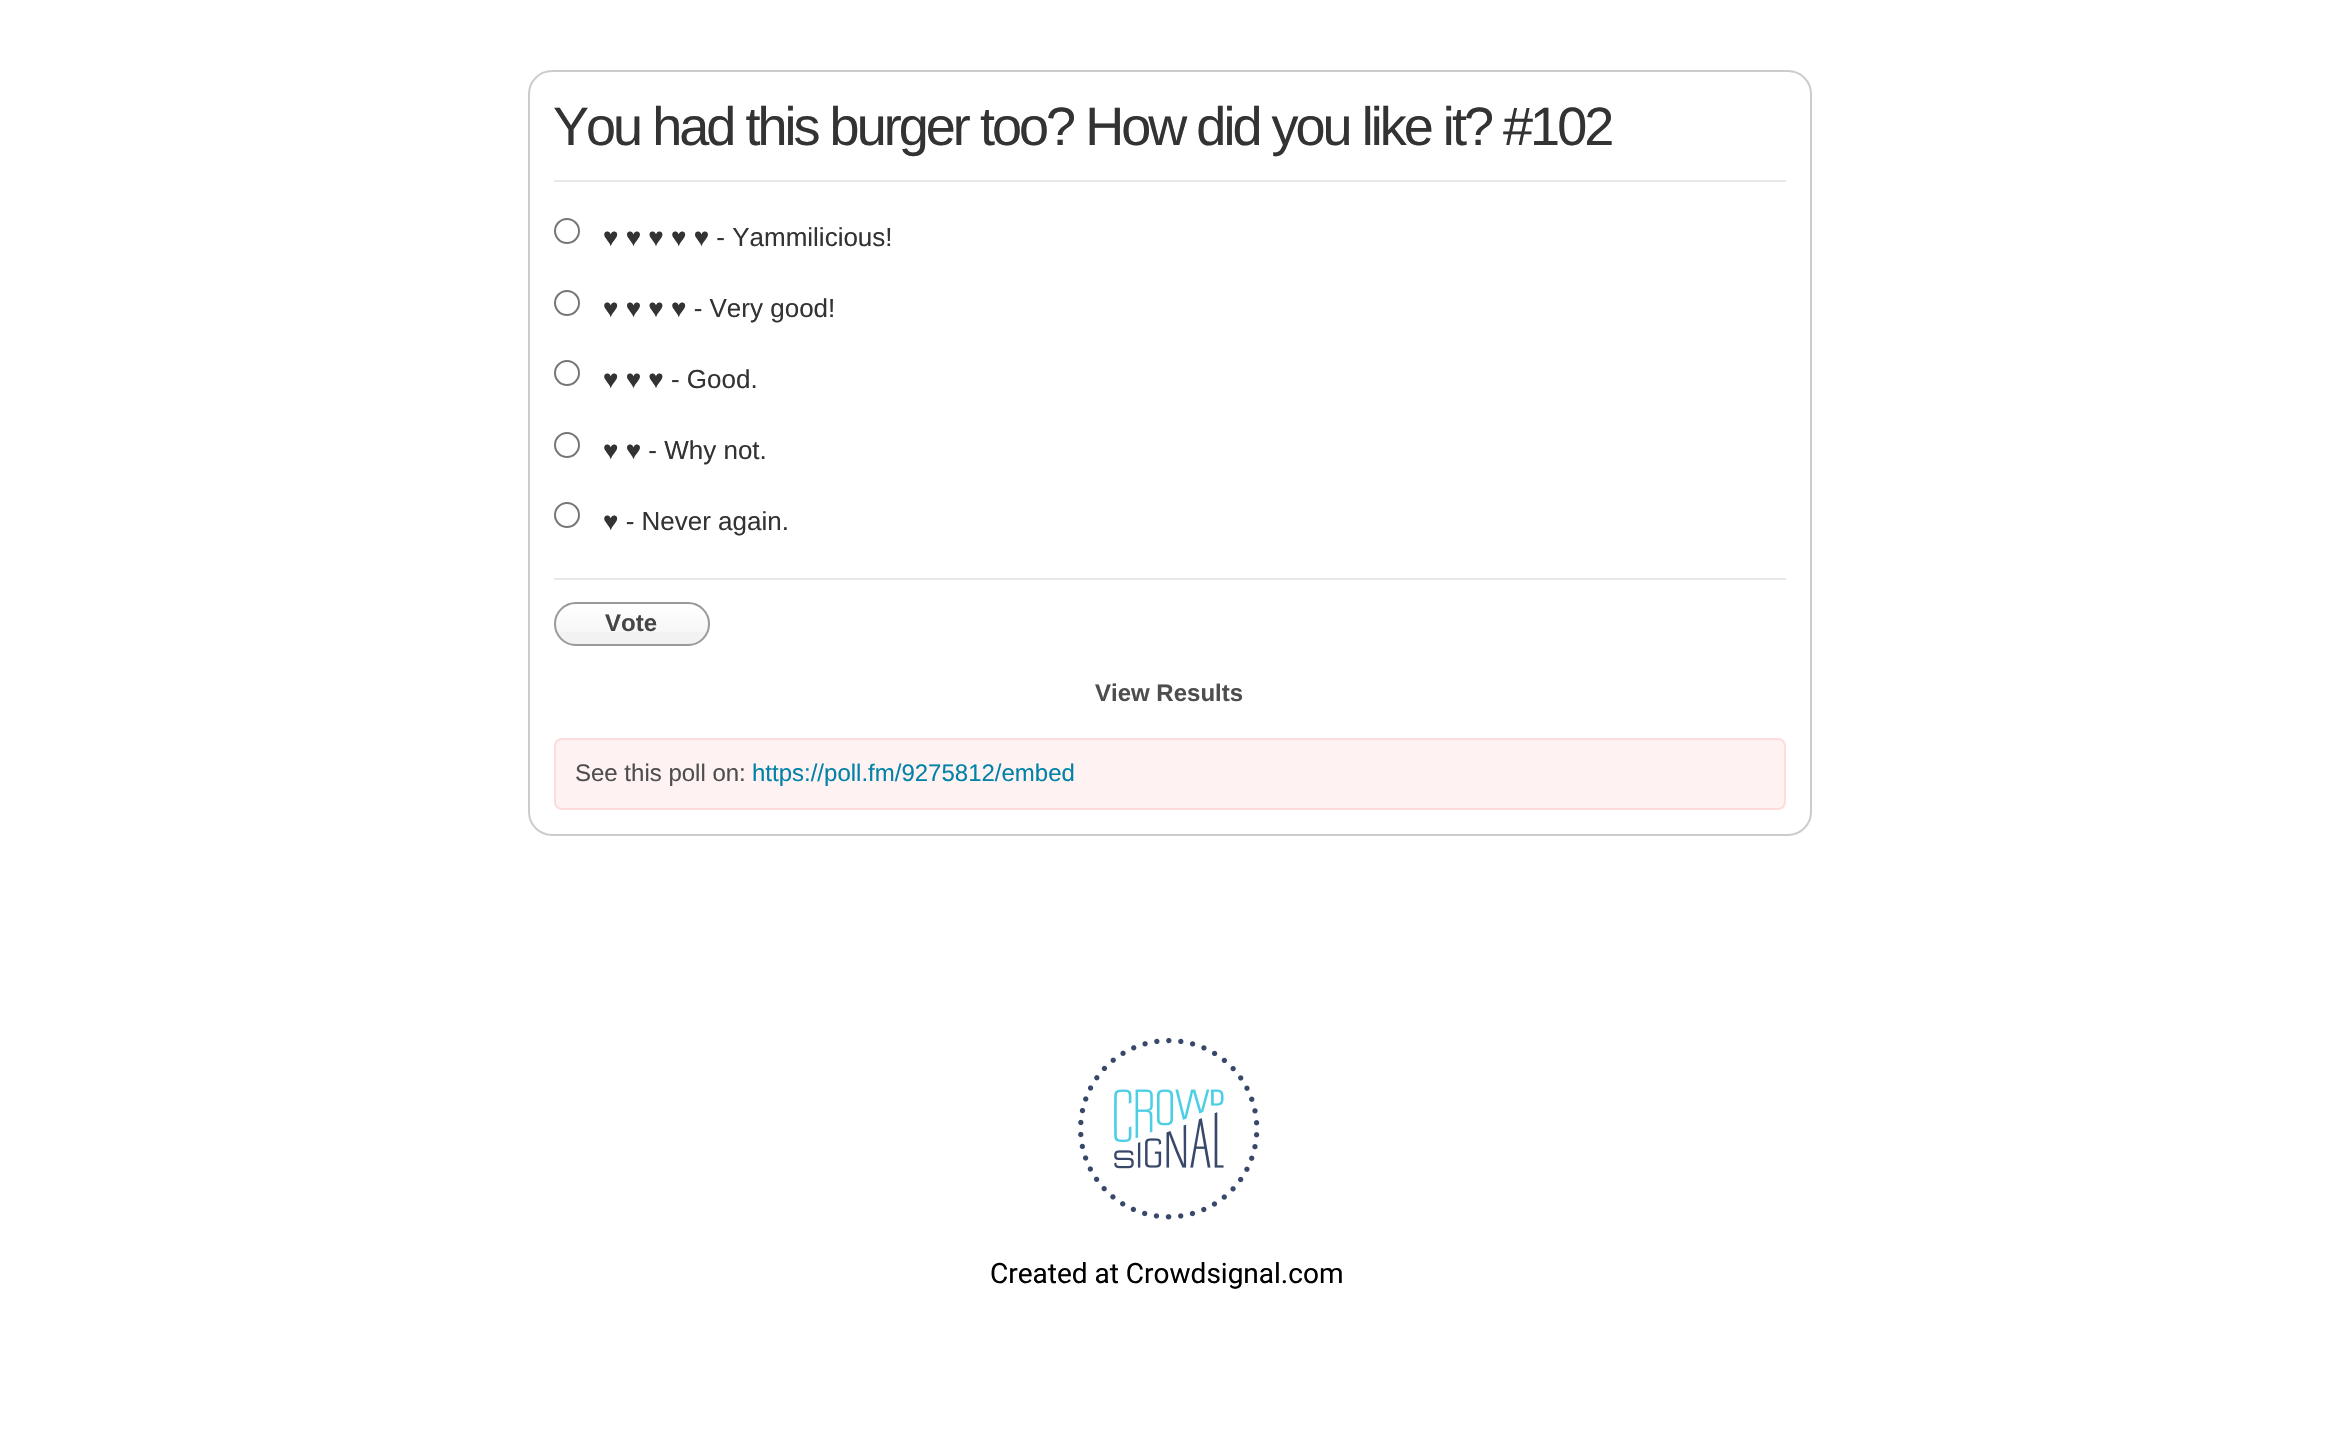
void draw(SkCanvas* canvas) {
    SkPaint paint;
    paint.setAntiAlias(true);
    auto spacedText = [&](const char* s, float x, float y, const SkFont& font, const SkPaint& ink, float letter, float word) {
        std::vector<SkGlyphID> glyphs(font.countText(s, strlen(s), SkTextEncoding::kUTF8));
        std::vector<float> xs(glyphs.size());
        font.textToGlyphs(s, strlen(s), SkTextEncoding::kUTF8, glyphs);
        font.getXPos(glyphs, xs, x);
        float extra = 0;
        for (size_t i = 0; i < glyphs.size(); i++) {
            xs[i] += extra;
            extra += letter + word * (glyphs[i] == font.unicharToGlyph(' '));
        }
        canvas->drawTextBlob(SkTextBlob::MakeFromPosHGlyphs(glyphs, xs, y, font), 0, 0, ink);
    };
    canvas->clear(0xFFFFFFFF);
    paint.setStyle(SkPaint::kStroke_Style);
    paint.setStrokeWidth(2);
    paint.setColor(0xFFCCCCCC);
    canvas->drawRoundRect(SkRect::MakeXYWH(529, 71, 1282, 764), 23, 23, paint);
    SkFont font1(fontMgr->matchFamilyStyle("Liberation Sans", SkFontStyle::Normal()), 54);
    font1.setSubpixel(true);
    paint.setStyle(SkPaint::kFill_Style);
    paint.setColor(0xFF333333);
    spacedText("You had this burger too? How did you like it? #102", 553, 145, font1, paint, -2.97f, 0);
    paint.setColor(0xFFE8E8E8);
    canvas->drawRect(SkRect::MakeXYWH(554, 180, 1232, 2), paint);
    canvas->drawRect(SkRect::MakeXYWH(554, 578, 1232, 2), paint);
    paint.setStyle(SkPaint::kStroke_Style);
    paint.setColor(0xFF767676);
    canvas->drawCircle(567, 231, 12, paint);
    SkFont font2(fontMgr->matchFamilyStyle("Liberation Sans", SkFontStyle::Normal()), 26);
    font2.setSubpixel(true);
    paint.setStyle(SkPaint::kFill_Style);
    paint.setColor(0xFF333333);
    canvas->drawString("♥ ♥ ♥ ♥ ♥ - Yammilicious!", 603, 246, font2, paint);
    paint.setStyle(SkPaint::kStroke_Style);
    paint.setColor(0xFF767676);
    canvas->drawCircle(567, 303, 12, paint);
    paint.setStyle(SkPaint::kFill_Style);
    paint.setColor(0xFF333333);
    canvas->drawString("♥ ♥ ♥ ♥ - Very good!", 603, 317, font2, paint);
    paint.setStyle(SkPaint::kStroke_Style);
    paint.setColor(0xFF767676);
    canvas->drawCircle(567, 373, 12, paint);
    paint.setStyle(SkPaint::kFill_Style);
    paint.setColor(0xFF333333);
    canvas->drawString("♥ ♥ ♥ - Good.", 603, 388, font2, paint);
    paint.setStyle(SkPaint::kStroke_Style);
    paint.setColor(0xFF767676);
    canvas->drawCircle(567, 445, 12, paint);
    paint.setStyle(SkPaint::kFill_Style);
    paint.setColor(0xFF333333);
    canvas->drawString("♥ ♥ - Why not.", 603, 459, font2, paint);
    paint.setStyle(SkPaint::kStroke_Style);
    paint.setColor(0xFF767676);
    canvas->drawCircle(567, 515, 12, paint);
    paint.setStyle(SkPaint::kFill_Style);
    paint.setColor(0xFF333333);
    canvas->drawString("♥ - Never again.", 603, 530, font2, paint);
    paint.setColor(0xFFF2F2F2);
    canvas->drawRoundRect(SkRect::MakeXYWH(554, 602, 156, 44), 22, 22, paint);
    canvas->drawImageRect(SkImages::DeferredFromEncodedData(SkData::MakeFromFileName("img1.png")), SkRect::MakeXYWH(554, 604, 156, 28), SkSamplingOptions());
    paint.setStyle(SkPaint::kStroke_Style);
    paint.setColor(0xFF999999);
    canvas->drawRoundRect(SkRect::MakeXYWH(555, 603, 154, 42), 21, 21, paint);
    SkFont font3(fontMgr->matchFamilyStyle("Liberation Sans", SkFontStyle::Bold()), 24);
    font3.setSubpixel(true);
    paint.setStyle(SkPaint::kFill_Style);
    paint.setColor(0xFF464646);
    canvas->drawString("Vote", 605, 631, font3, paint);
    paint.setColor(0xFF4E4E4E);
    canvas->drawString("View Results", 1095, 701, font3, paint);
    paint.setColor(0xFFFFF2F2);
    canvas->drawRoundRect(SkRect::MakeXYWH(555, 739, 1230, 70), 7, 7, paint);
    paint.setStyle(SkPaint::kStroke_Style);
    paint.setColor(0xFFFFDCDC);
    canvas->drawRoundRect(SkRect::MakeXYWH(555, 739, 1230, 70), 7, 7, paint);
    SkFont font4(fontMgr->matchFamilyStyle("Liberation Sans", SkFontStyle::Normal()), 24);
    font4.setSubpixel(true);
    paint.setStyle(SkPaint::kFill_Style);
    paint.setColor(0xFF4E4E4E);
    canvas->drawString("See this poll on:", 575, 781, font4, paint);
    paint.setColor(0xFF0182A8);
    canvas->drawString("https://poll.fm/9275812/embed", 752, 781, font4, paint);
    canvas->drawImageRect(SkImages::DeferredFromEncodedData(SkData::MakeFromFileName("img2.png")), SkRect::MakeXYWH(1078, 1037, 182, 183), SkSamplingOptions());
    SkFont font5(fontMgr->matchFamilyStyle("Roboto", SkFontStyle::Normal()), 28);
    font5.setSubpixel(true);
    paint.setColor(0xFF000000);
    canvas->drawString("Created at Crowdsignal.com", 990, 1283, font5, paint);
}
